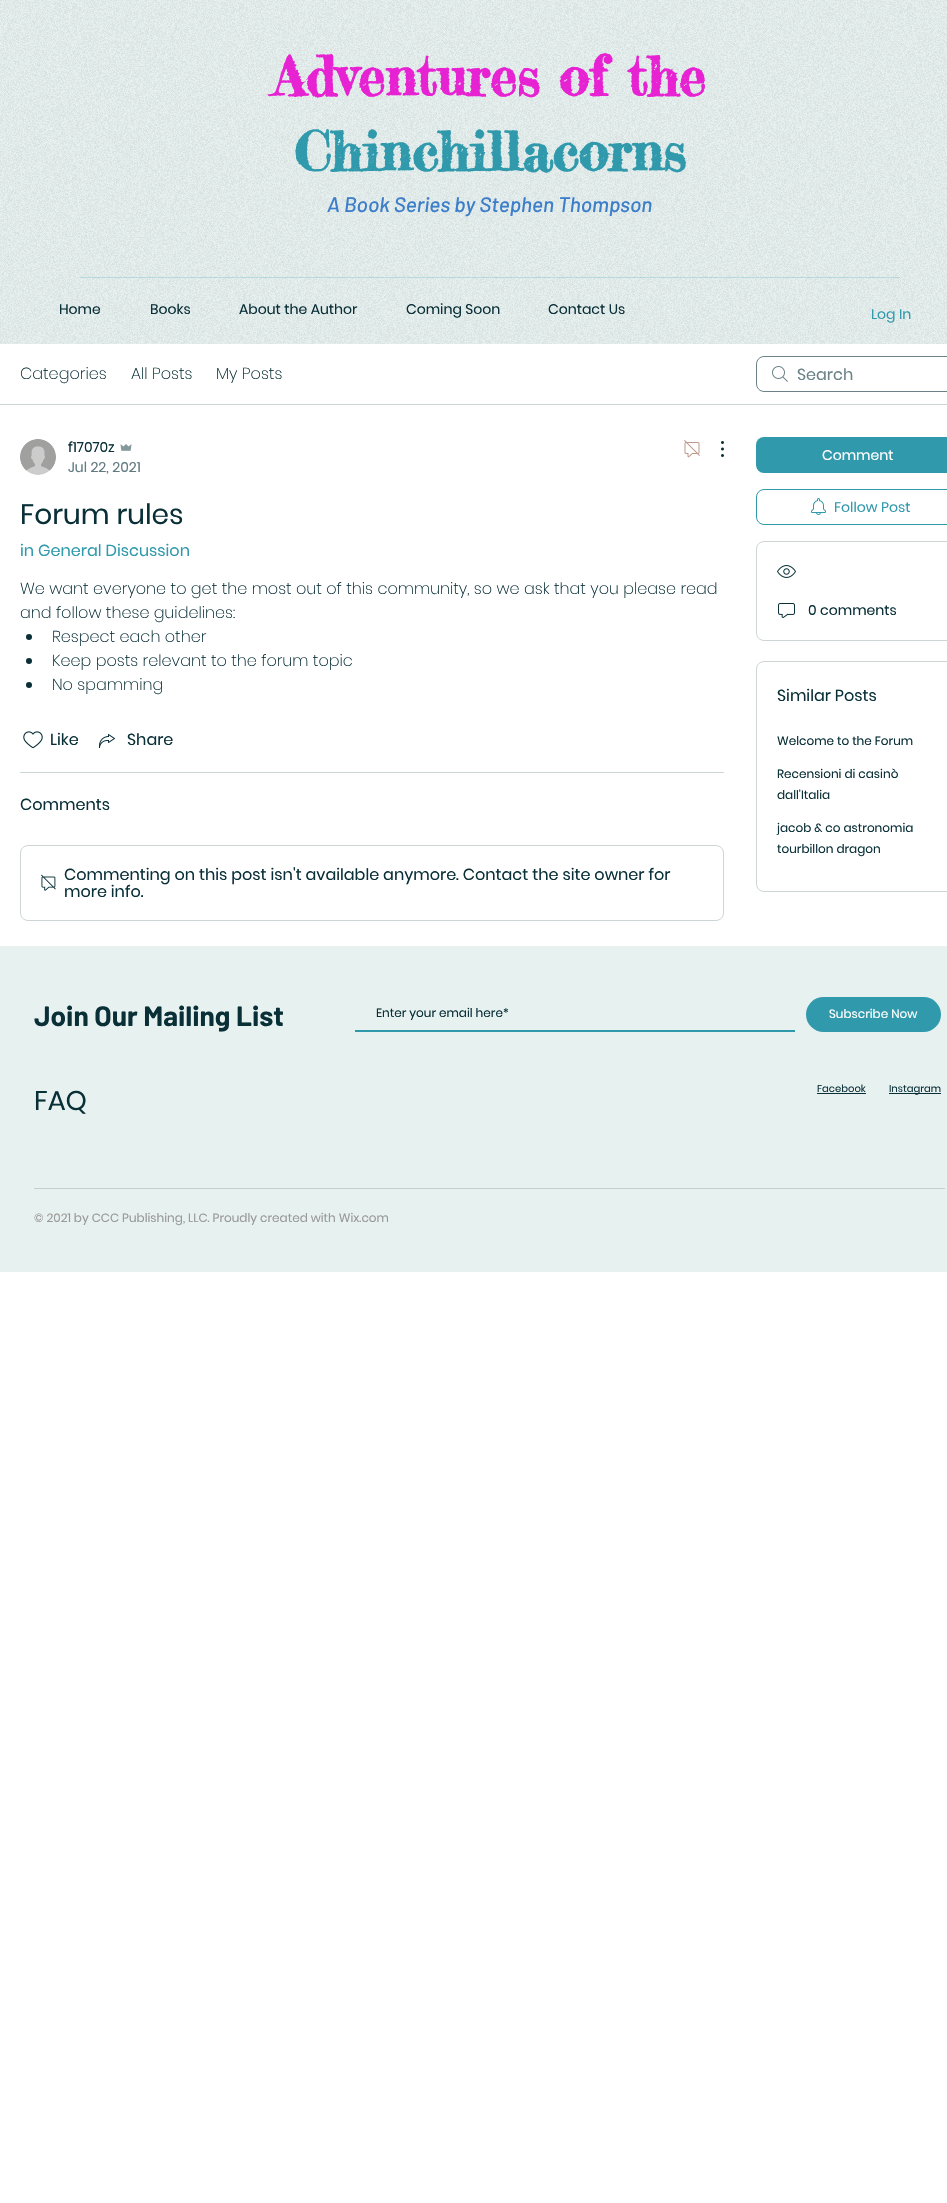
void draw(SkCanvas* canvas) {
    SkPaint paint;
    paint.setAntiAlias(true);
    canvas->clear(0xFFFFFFFF);
    paint.setColor(0xFFE7F1F0);
    canvas->drawRect(SkRect::MakeXYWH(0, 0, 947, 344), paint);
    canvas->drawImageRect(SkImages::DeferredFromEncodedData(SkData::MakeFromFileName("img1.png")), SkRect::MakeXYWH(0, 0, 947, 344), SkSamplingOptions());
    SkFont font1(fontMgr->matchFamilyStyle("Fredericka the Great", SkFontStyle::Bold()), 54);
    font1.setSubpixel(true);
    paint.setColor(0xFFE622D2);
    canvas->drawString("Adventures of the", 273, 96, font1, paint);
    paint.setColor(0xFF309AAC);
    canvas->drawString("Chinchillacorns", 294, 171, font1, paint);
    SkFont font2(fontMgr->matchFamilyStyle("Barlow", SkFontStyle(500, SkFontStyle::kNormal_Width, SkFontStyle::kItalic_Slant)), 21);
    font2.setSubpixel(true);
    paint.setColor(0xFF3C7EC9);
    canvas->drawString("A Book Series by Stephen Thompson", 327, 212, font2, paint);
    paint.setColor(0x6680BDC8);
    canvas->drawRect(SkRect::MakeXYWH(80, 277, 820, 1), paint);
    SkFont font3(fontMgr->matchFamilyStyle("Poppins", SkFontStyle::Normal()), 14);
    font3.setSubpixel(true);
    paint.setColor(0xFF092F37);
    canvas->drawString("Home", 59, 314, font3, paint);
    canvas->drawString("Books", 150, 314, font3, paint);
    canvas->drawString("About the Author", 239, 314, font3, paint);
    canvas->drawString("Coming Soon", 406, 314, font3, paint);
    canvas->drawString("Contact Us", 548, 314, font3, paint);
    paint.setColor(0xFF309AAC);
    canvas->drawString("Log In", 871, 319, font3, paint);
    paint.setColor(0xFFCED5D7);
    canvas->drawRect(SkRect::MakeXYWH(0, 404, 947, 1), paint);
    SkFont font4(fontMgr->matchFamilyStyle("Poppins", SkFontStyle(200, SkFontStyle::kNormal_Width, SkFontStyle::kUpright_Slant)), 16);
    font4.setSubpixel(true);
    paint.setColor(0xFF092F37);
    canvas->drawString("Categories", 20, 379, font4, paint);
    canvas->drawString("All Posts", 131, 379, font4, paint);
    canvas->drawString("My Posts", 216, 379, font4, paint);
    canvas->drawImageRect(SkImages::DeferredFromEncodedData(SkData::MakeFromFileName("img2.png")), SkRect::MakeXYWH(772, 366, 16, 16), SkSamplingOptions());
    paint.setStyle(SkPaint::kStroke_Style);
    paint.setStrokeWidth(1);
    paint.setColor(0xFF6B8287);
    canvas->drawRoundRect(SkRect::MakeXYWH(756.5f, 356.5f, 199, 35), 7.5f, 7.5f, paint);
    SkFont font5(fontMgr->matchFamilyStyle("Poppins", SkFontStyle::Normal()), 16);
    font5.setSubpixel(true);
    paint.setStyle(SkPaint::kFill_Style);
    canvas->drawString("Search", 797, 380, font5, paint);
    canvas->drawImageRect(SkImages::DeferredFromEncodedData(SkData::MakeFromFileName("img3.png")), SkRect::MakeXYWH(20, 439, 36, 36), SkSamplingOptions());
    paint.setColor(0xFF092F37);
    canvas->drawString("f17070z", 68, 452, font3, paint);
    canvas->drawImageRect(SkImages::DeferredFromEncodedData(SkData::MakeFromFileName("img4.png")), SkRect::MakeXYWH(120, 444, 12, 7), SkSamplingOptions());
    paint.setColor(0xFF627A7F);
    canvas->drawString("Jul 22, 2021", 68, 472, font3, paint);
    canvas->drawImageRect(SkImages::DeferredFromEncodedData(SkData::MakeFromFileName("img5.png")), SkRect::MakeXYWH(684, 440, 16, 18), SkSamplingOptions());
    canvas->drawImageRect(SkImages::DeferredFromEncodedData(SkData::MakeFromFileName("img6.png")), SkRect::MakeXYWH(721, 441, 3, 16), SkSamplingOptions());
    SkFont font6(fontMgr->matchFamilyStyle("Poppins", SkFontStyle::Normal()), 28);
    font6.setSubpixel(true);
    paint.setColor(0xFF092F37);
    canvas->drawString("Forum rules", 20, 524, font6, paint);
    paint.setColor(0xFF309AAC);
    canvas->drawString("in General Discussion", 20, 556, font5, paint);
    paint.setColor(0xFF092F37);
    canvas->drawString("We want everyone to get the most out of this community, so we ask that you please read", 20, 594, font4, paint);
    canvas->drawString("and follow these guidelines:", 20, 618, font4, paint);
    canvas->drawCircle(29, 637, 3, paint);
    canvas->drawString("Respect each other", 52, 642, font4, paint);
    canvas->drawCircle(29, 661, 3, paint);
    canvas->drawString("Keep posts relevant to the forum topic", 52, 666, font4, paint);
    canvas->drawCircle(29, 685, 3, paint);
    canvas->drawString("No spamming", 52, 690, font4, paint);
    canvas->drawImageRect(SkImages::DeferredFromEncodedData(SkData::MakeFromFileName("img7.png")), SkRect::MakeXYWH(23, 731, 20, 18), SkSamplingOptions());
    canvas->drawString("Like", 50, 745, font5, paint);
    canvas->drawImageRect(SkImages::DeferredFromEncodedData(SkData::MakeFromFileName("img8.png")), SkRect::MakeXYWH(99, 734, 16, 14), SkSamplingOptions());
    canvas->drawString("Share", 127, 745, font5, paint);
    paint.setColor(0xFFCED5D7);
    canvas->drawRect(SkRect::MakeXYWH(20, 772, 704, 1), paint);
    paint.setColor(0xFF092F37);
    canvas->drawString("Comments", 20, 810, font5, paint);
    paint.setStyle(SkPaint::kStroke_Style);
    paint.setColor(0xFFCED5D7);
    canvas->drawRoundRect(SkRect::MakeXYWH(20.5f, 845.5f, 703, 75), 7.5f, 7.5f, paint);
    canvas->drawImageRect(SkImages::DeferredFromEncodedData(SkData::MakeFromFileName("img9.png")), SkRect::MakeXYWH(41, 874, 15, 17), SkSamplingOptions());
    paint.setStyle(SkPaint::kFill_Style);
    paint.setColor(0xFF092F37);
    canvas->drawString("Commenting on this post isn't available anymore. Contact the site owner for", 64, 880, font5, paint);
    canvas->drawString("more info.", 64, 897, font5, paint);
    paint.setColor(0xFF309AAC);
    canvas->drawRoundRect(SkRect::MakeXYWH(756, 437, 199, 36), 8, 8, paint);
    paint.setColor(0xFFFFFFFF);
    canvas->drawString("Comment", 822, 460, font3, paint);
    paint.setStyle(SkPaint::kStroke_Style);
    paint.setColor(0xFF309AAC);
    canvas->drawRoundRect(SkRect::MakeXYWH(756.5f, 489.5f, 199, 35), 7.5f, 7.5f, paint);
    canvas->drawImageRect(SkImages::DeferredFromEncodedData(SkData::MakeFromFileName("img10.png")), SkRect::MakeXYWH(811, 498, 15, 17), SkSamplingOptions());
    paint.setStyle(SkPaint::kFill_Style);
    canvas->drawString("Follow Post", 834, 512, font3, paint);
    paint.setStyle(SkPaint::kStroke_Style);
    paint.setColor(0xFFCED5D7);
    canvas->drawRoundRect(SkRect::MakeXYWH(756.5f, 541.5f, 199, 99), 7.5f, 7.5f, paint);
    canvas->drawImageRect(SkImages::DeferredFromEncodedData(SkData::MakeFromFileName("img11.png")), SkRect::MakeXYWH(777, 565, 19, 13), SkSamplingOptions());
    canvas->drawImageRect(SkImages::DeferredFromEncodedData(SkData::MakeFromFileName("img12.png")), SkRect::MakeXYWH(778, 603, 17, 15), SkSamplingOptions());
    paint.setStyle(SkPaint::kFill_Style);
    paint.setColor(0xFF092F37);
    canvas->drawString("0 comments", 808, 615, font3, paint);
    paint.setStyle(SkPaint::kStroke_Style);
    paint.setColor(0xFFCED5D7);
    canvas->drawRoundRect(SkRect::MakeXYWH(756.5f, 661.5f, 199, 230), 7.5f, 7.5f, paint);
    paint.setStyle(SkPaint::kFill_Style);
    paint.setColor(0xFF092F37);
    canvas->drawString("Similar Posts", 777, 701, font5, paint);
    SkFont font7(fontMgr->matchFamilyStyle("Poppins", SkFontStyle::Normal()), 12);
    font7.setSubpixel(true);
    canvas->drawString("Welcome to the Forum", 777, 745, font7, paint);
    canvas->drawString("Recensioni di casinò", 777, 778, font7, paint);
    canvas->drawString("dall'Italia", 777, 799, font7, paint);
    canvas->drawString("jacob & co astronomia", 777, 832, font7, paint);
    canvas->drawString("tourbillon dragon", 777, 853, font7, paint);
    paint.setColor(0xFFE7F1F0);
    canvas->drawRect(SkRect::MakeXYWH(0, 946, 947, 326), paint);
    SkFont font8(fontMgr->matchFamilyStyle("Barlow", SkFontStyle::Bold()), 28);
    font8.setSubpixel(true);
    paint.setColor(0xFF092F37);
    canvas->drawString("Join Our Mailing List", 34, 1026, font8, paint);
    paint.setColor(0xFF309AAC);
    canvas->drawRect(SkRect::MakeXYWH(355, 1030, 440, 2), paint);
    paint.setColor(0xFF092F37);
    canvas->drawString("Enter your email here*", 376, 1017, font7, paint);
    paint.setColor(0xFF309AAC);
    canvas->drawRoundRect(SkRect::MakeXYWH(806, 997, 135, 35), 17.5f, 17.5f, paint);
    paint.setColor(0xFFFFFFFF);
    canvas->drawString("Subscribe Now", 829, 1018, font7, paint);
    SkFont font9(fontMgr->matchFamilyStyle("Poppins", SkFontStyle::Normal()), 27);
    font9.setSubpixel(true);
    paint.setColor(0xFF092F37);
    canvas->drawString("FAQ", 34, 1110, font9, paint);
    SkFont font10(fontMgr->matchFamilyStyle("Poppins", SkFontStyle::Normal()), 10);
    font10.setSubpixel(true);
    canvas->drawString("Facebook", 817, 1092, font10, paint);
    canvas->drawRect(SkRect::MakeXYWH(817, 1093, 49, 1), paint);
    canvas->drawRect(SkRect::MakeXYWH(889, 1093, 52, 1), paint);
    canvas->drawString("Instagram", 889, 1092, font10, paint);
    paint.setColor(0xFFC8CECC);
    canvas->drawRect(SkRect::MakeXYWH(34, 1188, 911, 1), paint);
    paint.setColor(0xFF999997);
    canvas->drawString("© 2021 by CCC Publishing, LLC. Proudly created with Wix.com", 34, 1222, font7, paint);
}
